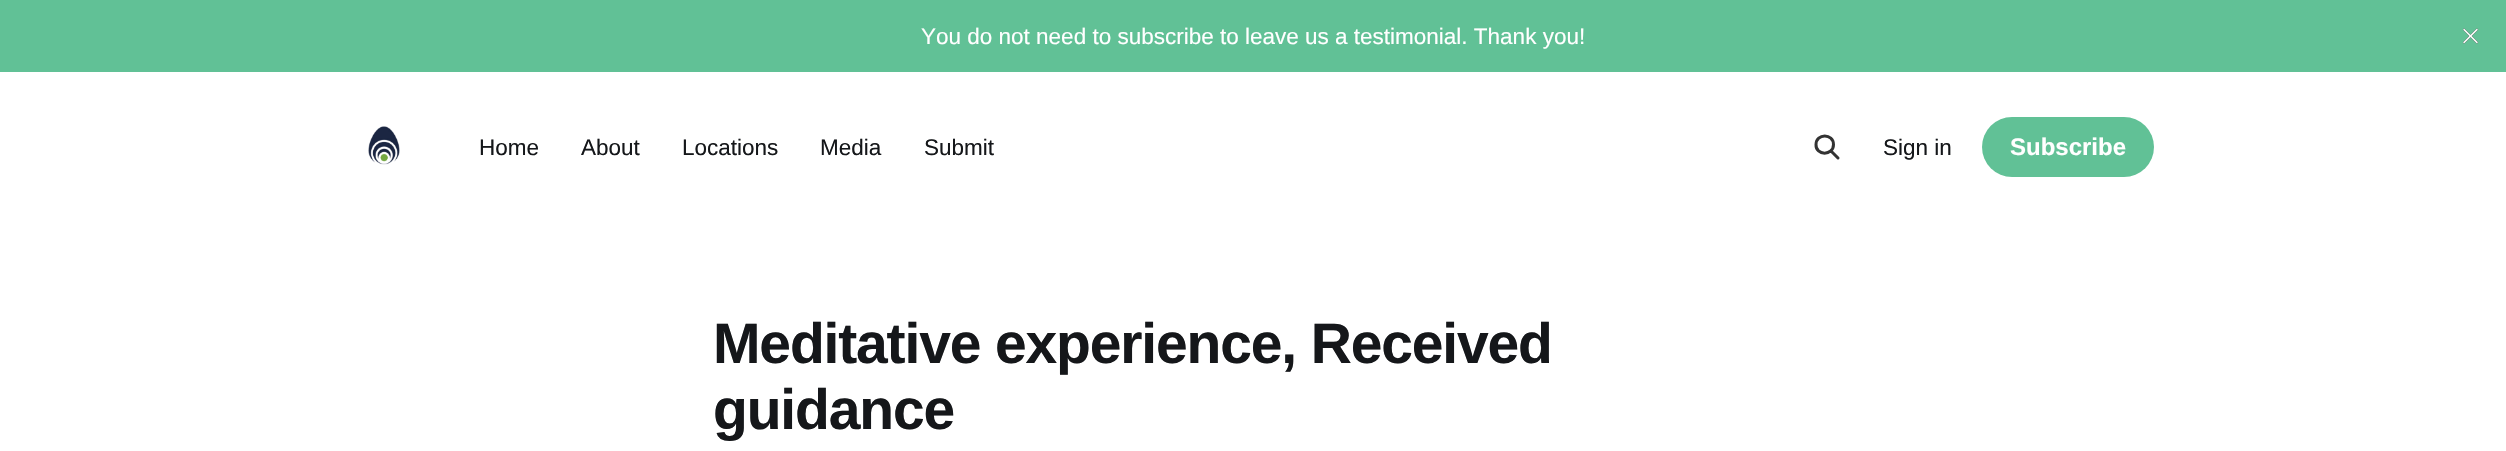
void draw(SkCanvas* canvas) {
    SkPaint paint;
    paint.setAntiAlias(true);
    auto spacedText = [&](const char* s, float x, float y, const SkFont& font, const SkPaint& ink, float letter, float word) {
        std::vector<SkGlyphID> glyphs(font.countText(s, strlen(s), SkTextEncoding::kUTF8));
        std::vector<float> xs(glyphs.size());
        font.textToGlyphs(s, strlen(s), SkTextEncoding::kUTF8, glyphs);
        font.getXPos(glyphs, xs, x);
        float extra = 0;
        for (size_t i = 0; i < glyphs.size(); i++) {
            xs[i] += extra;
            extra += letter + word * (glyphs[i] == font.unicharToGlyph(' '));
        }
        canvas->drawTextBlob(SkTextBlob::MakeFromPosHGlyphs(glyphs, xs, y, font), 0, 0, ink);
    };
    canvas->clear(0xFFFFFFFF);
    paint.setColor(0xFF61C196);
    canvas->drawRect(SkRect::MakeXYWH(0, 0, 2506, 72), paint);
    SkFont font1(fontMgr->matchFamilyStyle("Liberation Sans", SkFontStyle::Normal()), 22.5f);
    font1.setSubpixel(true);
    paint.setColor(0xFFFFFFFF);
    canvas->drawString("You do not need to subscribe to leave us a testimonial. Thank you!", 921, 44, font1, paint);
    canvas->drawImageRect(SkImages::DeferredFromEncodedData(SkData::MakeFromFileName("img1.png")), SkRect::MakeXYWH(2462, 28, 17, 16), SkSamplingOptions());
    canvas->drawImageRect(SkImages::DeferredFromEncodedData(SkData::MakeFromFileName("img2.png")), SkRect::MakeXYWH(368, 126, 32, 39), SkSamplingOptions());
    paint.setColor(0xFF15171A);
    canvas->drawString("Home", 479, 155, font1, paint);
    canvas->drawString("About", 581, 155, font1, paint);
    canvas->drawString("Locations", 682, 155, font1, paint);
    canvas->drawString("Media", 820, 155, font1, paint);
    canvas->drawString("Submit", 924, 155, font1, paint);
    paint.setStyle(SkPaint::kStroke_Style);
    paint.setStrokeWidth(3);
    paint.setStrokeCap(SkPaint::kRound_Cap);
    paint.setStrokeJoin(SkPaint::kRound_Join);
    paint.setColor(0xFF333333);
    canvas->drawPath(SkPathBuilder().moveTo(1838, 158).lineTo(1831, 151).close().moveTo(1833.5f, 144.5f).cubicTo(1833.5f, 156, 1815.5f, 156, 1816, 144.5f).cubicTo(1816, 133, 1833.5f, 133, 1833.5f, 144.5f).close().detach(), paint);
    paint.setStyle(SkPaint::kFill_Style);
    paint.setColor(0xFF15171A);
    canvas->drawString("Sign in", 1883, 155, font1, paint);
    paint.setColor(0xFF61C196);
    canvas->drawRoundRect(SkRect::MakeXYWH(1982, 117, 172, 60), 30, 30, paint);
    SkFont font2(fontMgr->matchFamilyStyle("Liberation Sans", SkFontStyle::Bold()), 24);
    font2.setSubpixel(true);
    paint.setColor(0xFFFFFFFF);
    canvas->drawString("Subscribe", 2010, 155, font2, paint);
    SkFont font3(fontMgr->matchFamilyStyle("Liberation Sans", SkFontStyle::Bold()), 57);
    font3.setSubpixel(true);
    paint.setColor(0xFF15171A);
    spacedText("Meditative experience, Received", 713, 363, font3, paint, -1.15f, 0);
    spacedText("guidance", 713, 429, font3, paint, -1.15f, 0);
}
